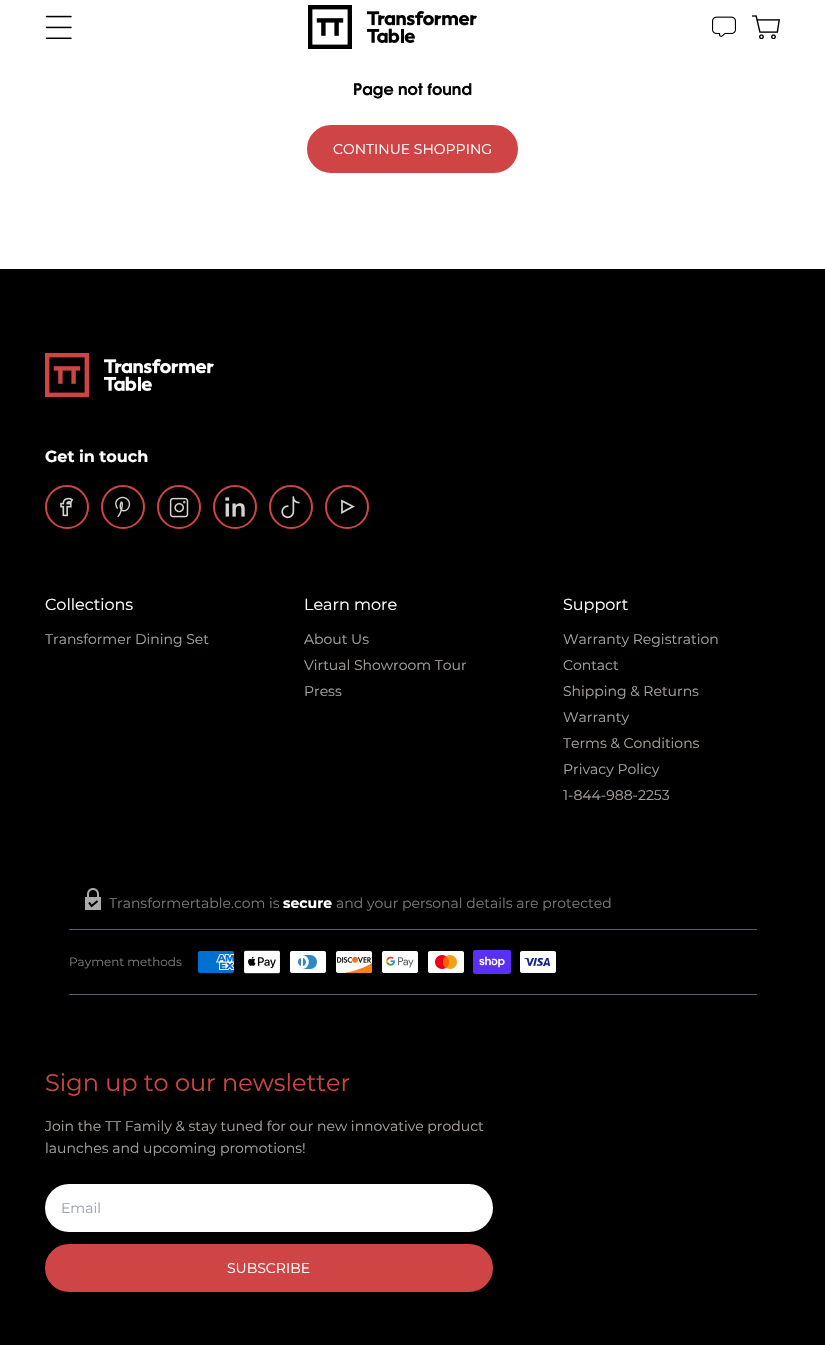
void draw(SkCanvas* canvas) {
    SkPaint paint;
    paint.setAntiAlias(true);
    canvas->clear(0xFFFFFFFF);
    canvas->drawImageRect(SkImages::DeferredFromEncodedData(SkData::MakeFromFileName("img1.png")), SkRect::MakeXYWH(45, 15, 27, 24), SkSamplingOptions());
    canvas->drawImageRect(SkImages::DeferredFromEncodedData(SkData::MakeFromFileName("img2.png")), SkRect::MakeXYWH(308, 5, 169, 44), SkSamplingOptions());
    canvas->drawImageRect(SkImages::DeferredFromEncodedData(SkData::MakeFromFileName("img3.png")), SkRect::MakeXYWH(712, 16, 24, 21), SkSamplingOptions());
    canvas->drawImageRect(SkImages::DeferredFromEncodedData(SkData::MakeFromFileName("img4.png")), SkRect::MakeXYWH(752, 15, 28, 24), SkSamplingOptions());
    SkFont font1(fontMgr->matchFamilyStyle("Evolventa", SkFontStyle::Bold()), 16);
    font1.setSubpixel(true);
    paint.setColor(0xFF000000);
    canvas->drawString("Page not found", 353, 95, font1, paint);
    paint.setColor(0xFFCF4545);
    canvas->drawRoundRect(SkRect::MakeXYWH(308, 126, 209, 46), 23, 23, paint);
    paint.setStyle(SkPaint::kStroke_Style);
    paint.setStrokeWidth(2);
    canvas->drawRoundRect(SkRect::MakeXYWH(308, 126, 209, 46), 23, 23, paint);
    SkFont font2(fontMgr->matchFamilyStyle("Montserrat", SkFontStyle::Normal()), 14);
    font2.setSubpixel(true);
    paint.setStyle(SkPaint::kFill_Style);
    paint.setColor(0xFFFFFFFF);
    canvas->drawString("CONTINUE SHOPPING", 333, 154, font2, paint);
    paint.setColor(0xFF000000);
    canvas->drawRect(SkRect::MakeXYWH(0, 269, 825, 1076), paint);
    canvas->drawImageRect(SkImages::DeferredFromEncodedData(SkData::MakeFromFileName("img5.png")), SkRect::MakeXYWH(45, 353, 169, 44), SkSamplingOptions());
    SkFont font3(fontMgr->matchFamilyStyle("Montserrat", SkFontStyle::Bold()), 16);
    font3.setSubpixel(true);
    paint.setColor(0xFFFFFFFF);
    canvas->drawString("Get in touch", 45, 462, font3, paint);
    paint.setStyle(SkPaint::kStroke_Style);
    paint.setColor(0xFFCF4545);
    canvas->drawCircle(67, 507, 21, paint);
    canvas->drawImageRect(SkImages::DeferredFromEncodedData(SkData::MakeFromFileName("img6.png")), SkRect::MakeXYWH(60, 497, 14, 20), SkSamplingOptions());
    canvas->drawCircle(123, 507, 21, paint);
    canvas->drawImageRect(SkImages::DeferredFromEncodedData(SkData::MakeFromFileName("img7.png")), SkRect::MakeXYWH(115, 496, 16, 21), SkSamplingOptions());
    canvas->drawCircle(179, 507, 21, paint);
    canvas->drawImageRect(SkImages::DeferredFromEncodedData(SkData::MakeFromFileName("img8.png")), SkRect::MakeXYWH(169, 497, 20, 21), SkSamplingOptions());
    canvas->drawCircle(235, 507, 21, paint);
    canvas->drawImageRect(SkImages::DeferredFromEncodedData(SkData::MakeFromFileName("img9.png")), SkRect::MakeXYWH(225, 497, 20, 20), SkSamplingOptions());
    canvas->drawCircle(291, 507, 21, paint);
    canvas->drawImageRect(SkImages::DeferredFromEncodedData(SkData::MakeFromFileName("img10.png")), SkRect::MakeXYWH(281, 496, 19, 23), SkSamplingOptions());
    canvas->drawCircle(347, 507, 21, paint);
    paint.setStrokeWidth(1.7f);
    paint.setColor(0xFFD6D3D1);
    canvas->drawPath(SkPathBuilder().moveTo(342, 501).lineTo(342, 512.5f).lineTo(353, 506.5f).close().detach(), paint);
    SkFont font4(fontMgr->matchFamilyStyle("Montserrat", SkFontStyle::Normal()), 16);
    font4.setSubpixel(true);
    paint.setStyle(SkPaint::kFill_Style);
    paint.setColor(0xFFFFFFFF);
    canvas->drawString("Collections", 45, 610, font4, paint);
    paint.setColor(0xFFA8A29E);
    canvas->drawString("Transformer Dining Set", 45, 644, font2, paint);
    paint.setColor(0xFFFFFFFF);
    canvas->drawString("Learn more", 304, 610, font4, paint);
    paint.setColor(0xFFA8A29E);
    canvas->drawString("About Us", 304, 644, font2, paint);
    canvas->drawString("Virtual Showroom Tour", 304, 670, font2, paint);
    canvas->drawString("Press", 304, 696, font2, paint);
    paint.setColor(0xFFFFFFFF);
    canvas->drawString("Support", 563, 610, font4, paint);
    paint.setColor(0xFFA8A29E);
    canvas->drawString("Warranty Registration", 563, 644, font2, paint);
    canvas->drawString("Contact", 563, 670, font2, paint);
    canvas->drawString("Shipping & Returns", 563, 696, font2, paint);
    canvas->drawString("Warranty", 563, 722, font2, paint);
    canvas->drawString("Terms & Conditions", 563, 748, font2, paint);
    canvas->drawString("Privacy Policy", 563, 774, font2, paint);
    canvas->drawString("1-844-988-2253", 563, 800, font2, paint);
    canvas->drawImageRect(SkImages::DeferredFromEncodedData(SkData::MakeFromFileName("img11.png")), SkRect::MakeXYWH(85, 888, 16, 22), SkSamplingOptions());
    paint.setColor(0xFF787878);
    canvas->drawString("Transformertable.com is", 109, 908, font2, paint);
    SkFont font5(fontMgr->matchFamilyStyle("Montserrat", SkFontStyle::Bold()), 14);
    font5.setSubpixel(true);
    paint.setColor(0xFFFFFFFF);
    canvas->drawString("secure", 283, 908, font5, paint);
    paint.setColor(0xFF787878);
    canvas->drawString("and your personal details are protected", 336, 908, font2, paint);
    paint.setColor(0xFF5D5F6B);
    canvas->drawRect(SkRect::MakeXYWH(69, 929, 688, 1), paint);
    canvas->drawRect(SkRect::MakeXYWH(69, 994, 688, 1), paint);
    SkFont font6(fontMgr->matchFamilyStyle("Montserrat", SkFontStyle::Normal()), 12);
    font6.setSubpixel(true);
    paint.setColor(0xFF787878);
    canvas->drawString("Payment methods", 69, 966, font6, paint);
    canvas->drawImageRect(SkImages::DeferredFromEncodedData(SkData::MakeFromFileName("img12.png")), SkRect::MakeXYWH(198, 951, 36, 22), SkSamplingOptions());
    canvas->drawImageRect(SkImages::DeferredFromEncodedData(SkData::MakeFromFileName("img13.png")), SkRect::MakeXYWH(244, 950, 36, 24), SkSamplingOptions());
    canvas->drawImageRect(SkImages::DeferredFromEncodedData(SkData::MakeFromFileName("img14.png")), SkRect::MakeXYWH(290, 951, 36, 22), SkSamplingOptions());
    canvas->drawImageRect(SkImages::DeferredFromEncodedData(SkData::MakeFromFileName("img15.png")), SkRect::MakeXYWH(336, 951, 37, 22), SkSamplingOptions());
    canvas->drawImageRect(SkImages::DeferredFromEncodedData(SkData::MakeFromFileName("img16.png")), SkRect::MakeXYWH(382, 951, 36, 22), SkSamplingOptions());
    canvas->drawImageRect(SkImages::DeferredFromEncodedData(SkData::MakeFromFileName("img17.png")), SkRect::MakeXYWH(428, 951, 36, 22), SkSamplingOptions());
    canvas->drawImageRect(SkImages::DeferredFromEncodedData(SkData::MakeFromFileName("img18.png")), SkRect::MakeXYWH(473, 950, 38, 24), SkSamplingOptions());
    canvas->drawImageRect(SkImages::DeferredFromEncodedData(SkData::MakeFromFileName("img19.png")), SkRect::MakeXYWH(520, 951, 36, 22), SkSamplingOptions());
    SkFont font7(fontMgr->matchFamilyStyle("Montserrat", SkFontStyle::Normal()), 24);
    font7.setSubpixel(true);
    paint.setColor(0xFFCF4545);
    canvas->drawString("Sign up to our newsletter", 45, 1091, font7, paint);
    paint.setColor(0xFFA8A29E);
    canvas->drawString("Join the TT Family & stay tuned for our new innovative product", 45, 1131, font2, paint);
    canvas->drawString("launches and upcoming promotions!", 45, 1153, font2, paint);
    paint.setColor(0xFFFFFFFF);
    canvas->drawRoundRect(SkRect::MakeXYWH(45, 1184, 448, 48), 24, 24, paint);
    paint.setColor(0xFF9CA3AF);
    canvas->drawString("Email", 61, 1213, font2, paint);
    paint.setColor(0xFFCF4545);
    canvas->drawRoundRect(SkRect::MakeXYWH(46, 1245, 446, 46), 23, 23, paint);
    paint.setStyle(SkPaint::kStroke_Style);
    paint.setStrokeWidth(2);
    canvas->drawRoundRect(SkRect::MakeXYWH(46, 1245, 446, 46), 23, 23, paint);
    paint.setStyle(SkPaint::kFill_Style);
    paint.setColor(0xFFFFFFFF);
    canvas->drawString("SUBSCRIBE", 227, 1273, font2, paint);
}
